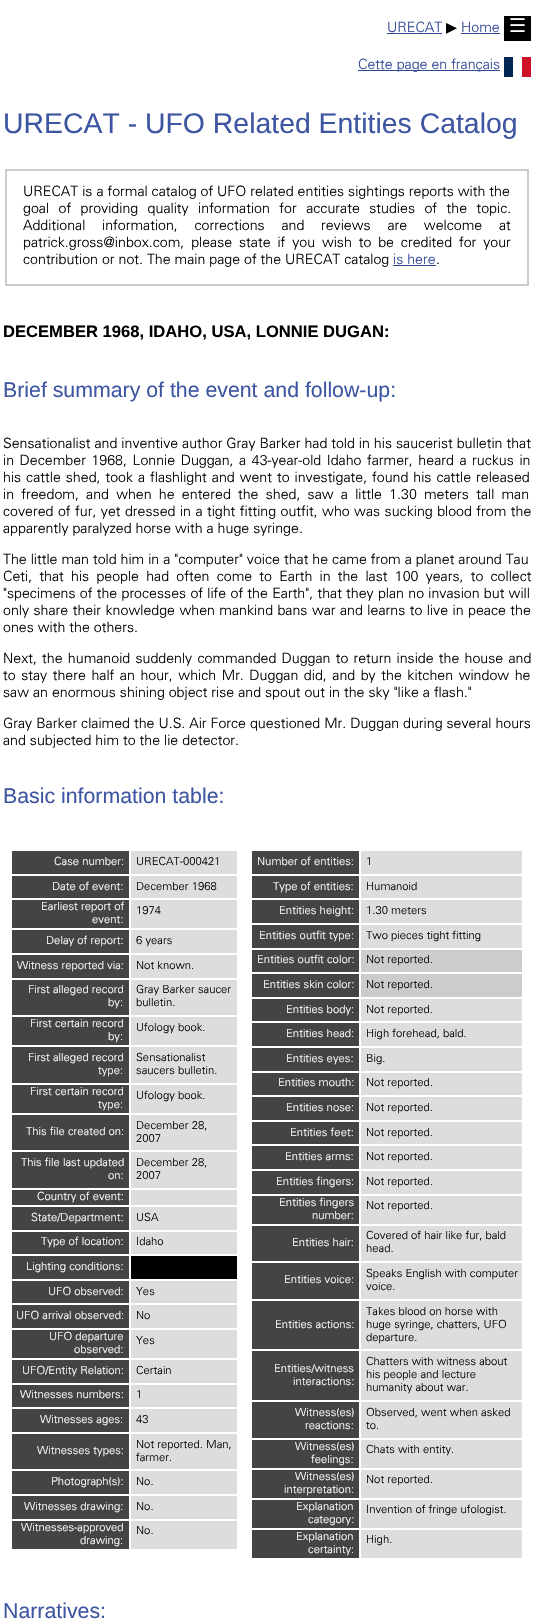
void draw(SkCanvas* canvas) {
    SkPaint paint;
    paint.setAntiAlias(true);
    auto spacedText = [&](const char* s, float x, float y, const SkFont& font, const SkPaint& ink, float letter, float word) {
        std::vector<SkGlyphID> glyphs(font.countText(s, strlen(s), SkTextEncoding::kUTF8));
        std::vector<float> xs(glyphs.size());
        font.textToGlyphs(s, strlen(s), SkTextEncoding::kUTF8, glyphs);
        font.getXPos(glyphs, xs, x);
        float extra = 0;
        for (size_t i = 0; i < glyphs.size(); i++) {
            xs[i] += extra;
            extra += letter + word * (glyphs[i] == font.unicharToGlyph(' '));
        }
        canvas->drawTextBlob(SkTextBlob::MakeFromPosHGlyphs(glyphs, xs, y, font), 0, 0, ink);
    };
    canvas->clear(0xFFFFFFFF);
    SkFont font1(fontMgr->matchFamilyStyle("Univers", SkFontStyle(300, SkFontStyle::kNormal_Width, SkFontStyle::kUpright_Slant)), 14.2f);
    font1.setSubpixel(true);
    paint.setColor(0xFF2E4692);
    canvas->drawString("URECAT", 387, 32, font1, paint);
    canvas->drawRect(SkRect::MakeXYWH(387, 33, 55, 1), paint);
    SkFont font2(fontMgr->matchFamilyStyle("DejaVu Sans", SkFontStyle::Normal()), 14.2f);
    font2.setSubpixel(true);
    paint.setColor(0xFF000000);
    canvas->drawString("▶", 446, 32, font2, paint);
    paint.setColor(0xFF2E4692);
    canvas->drawString("Home", 461, 32, font1, paint);
    canvas->drawRect(SkRect::MakeXYWH(461, 33, 39, 1), paint);
    paint.setColor(0xFF000000);
    canvas->drawRect(SkRect::MakeXYWH(504, 16, 27, 25), paint);
    SkFont font3(fontMgr->matchFamilyStyle("DejaVu Sans", SkFontStyle::Normal()), 19);
    font3.setSubpixel(true);
    paint.setColor(0xFFFFFFFF);
    canvas->drawString("☰", 509, 32, font3, paint);
    paint.setColor(0xFF2E4692);
    canvas->drawRect(SkRect::MakeXYWH(358, 70, 142, 1), paint);
    canvas->drawString("Cette page en français", 358, 69, font1, paint);
    paint.setColor(0xFF002654);
    canvas->drawRect(SkRect::MakeXYWH(504, 57, 9, 20), paint);
    paint.setColor(0xFFCE1126);
    canvas->drawRect(SkRect::MakeXYWH(522, 57, 9, 20), paint);
    SkFont font4(fontMgr->matchFamilyStyle("Liberation Sans", SkFontStyle::Normal()), 28.4f);
    font4.setSubpixel(true);
    paint.setColor(0xFF3E56A2);
    canvas->drawString("URECAT - UFO Related Entities Catalog", 3, 133, font4, paint);
    paint.setStyle(SkPaint::kStroke_Style);
    paint.setStrokeWidth(2);
    paint.setColor(0xFFCCCCCC);
    canvas->drawRect(SkRect::MakeXYWH(6, 170, 522, 115), paint);
    paint.setStyle(SkPaint::kFill_Style);
    paint.setColor(0xFF000000);
    canvas->drawString("URECAT is a formal catalog of UFO related entities sightings reports with the", 23, 196, font1, paint);
    spacedText("goal of providing quality information for accurate studies of the topic.", 23, 213, font1, paint, 0, 5.5f);
    spacedText("Additional information, corrections and reviews are welcome at", 23, 230, font1, paint, 0, 12.75f);
    spacedText("patrick.gross@inbox.com, please state if you wish to be credited for your", 23, 247, font1, paint, 0, 2.9f);
    canvas->drawString("contribution or not. The main page of the URECAT catalog", 23, 264, font1, paint);
    paint.setColor(0xFF2E4692);
    canvas->drawString("is here", 393, 264, font1, paint);
    canvas->drawRect(SkRect::MakeXYWH(393, 265, 43, 1), paint);
    paint.setColor(0xFF000000);
    canvas->drawString(".", 436, 264, font1, paint);
    SkFont font5(fontMgr->matchFamilyStyle("Liberation Sans", SkFontStyle::Bold()), 16.6f);
    font5.setSubpixel(true);
    canvas->drawString("DECEMBER 1968, IDAHO, USA, LONNIE DUGAN:", 3, 337, font5, paint);
    SkFont font6(fontMgr->matchFamilyStyle("Liberation Sans", SkFontStyle::Normal()), 21.3f);
    font6.setSubpixel(true);
    paint.setColor(0xFF3E56A2);
    canvas->drawString("Brief summary of the event and follow-up:", 3, 397, font6, paint);
    paint.setColor(0xFF000000);
    canvas->drawString("Sensationalist and inventive author Gray Barker had told in his saucerist bulletin that", 3, 448, font1, paint);
    spacedText("in December 1968, Lonnie Duggan, a 43-year-old Idaho farmer, heard a ruckus in", 3, 465, font1, paint, 0, 1.6f);
    spacedText("his cattle shed, took a flashlight and went to investigate, found his cattle released", 3, 482, font1, paint, 0, 1);
    spacedText("in freedom, and when he entered the shed, saw a little 1.30 meters tall man", 3, 499, font1, paint, 0, 3.25f);
    spacedText("covered of fur, yet dressed in a tight fitting outfit, who was sucking blood from the", 3, 516, font1, paint, 0, 0.5f);
    canvas->drawString("apparently paralyzed horse with a huge syringe.", 3, 533, font1, paint);
    canvas->drawString("The little man told him in a \"computer\" voice that he came from a planet around Tau", 3, 564, font1, paint);
    spacedText("Ceti, that his people had often come to Earth in the last 100 years, to collect", 3, 581, font1, paint, 0, 3.25f);
    spacedText("\"specimens of the processes of life of the Earth\", that they plan no invasion but will", 3, 598, font1, paint, 0, 0.3f);
    spacedText("only share their knowledge when mankind bans war and learns to live in peace the", 3, 615, font1, paint, 0, 0.5f);
    canvas->drawString("ones with the others.", 3, 632, font1, paint);
    spacedText("Next, the humanoid suddenly commanded Duggan to return inside the house and", 3, 663, font1, paint, 0, 1.25f);
    spacedText("to stay there half an hour, which Mr. Duggan did, and by the kitchen window he", 3, 680, font1, paint, 0, 1.6f);
    canvas->drawString("saw an enormous shining object rise and spout out in the sky \"like a flash.\"", 3, 697, font1, paint);
    canvas->drawString("Gray Barker claimed the U.S. Air Force questioned Mr. Duggan during several hours", 3, 728, font1, paint);
    canvas->drawString("and subjected him to the lie detector.", 3, 745, font1, paint);
    paint.setColor(0xFF3E56A2);
    canvas->drawString("Basic information table:", 3, 803, font6, paint);
    paint.setColor(0xFF444444);
    canvas->drawRect(SkRect::MakeXYWH(12, 851, 117, 23), paint);
    SkFont font7(fontMgr->matchFamilyStyle("Univers", SkFontStyle(300, SkFontStyle::kNormal_Width, SkFontStyle::kUpright_Slant)), 11.25f);
    font7.setSubpixel(true);
    paint.setColor(0xFFFFFFFF);
    canvas->drawString("Case number:", 54, 865, font7, paint);
    paint.setColor(0xFFDDDDDD);
    canvas->drawRect(SkRect::MakeXYWH(131, 851, 106, 23), paint);
    paint.setColor(0xFF000000);
    canvas->drawString("URECAT-000421", 136, 865, font7, paint);
    paint.setColor(0xFF444444);
    canvas->drawRect(SkRect::MakeXYWH(12, 876, 117, 22), paint);
    paint.setColor(0xFFFFFFFF);
    canvas->drawString("Date of event:", 52, 890, font7, paint);
    paint.setColor(0xFFDDDDDD);
    canvas->drawRect(SkRect::MakeXYWH(131, 876, 106, 22), paint);
    paint.setColor(0xFF000000);
    canvas->drawString("December 1968", 136, 890, font7, paint);
    paint.setColor(0xFF444444);
    canvas->drawRect(SkRect::MakeXYWH(12, 900, 117, 28), paint);
    paint.setColor(0xFFFFFFFF);
    canvas->drawString("Earliest report of", 41, 910, font7, paint);
    canvas->drawString("event:", 92, 923, font7, paint);
    paint.setColor(0xFFDDDDDD);
    canvas->drawRect(SkRect::MakeXYWH(131, 900, 106, 28), paint);
    paint.setColor(0xFF000000);
    canvas->drawString("1974", 136, 914, font7, paint);
    paint.setColor(0xFF444444);
    canvas->drawRect(SkRect::MakeXYWH(12, 930, 117, 23), paint);
    paint.setColor(0xFFFFFFFF);
    canvas->drawString("Delay of report:", 46, 944, font7, paint);
    paint.setColor(0xFFDDDDDD);
    canvas->drawRect(SkRect::MakeXYWH(131, 930, 106, 23), paint);
    paint.setColor(0xFF000000);
    canvas->drawString("6 years", 136, 944, font7, paint);
    paint.setColor(0xFF444444);
    canvas->drawRect(SkRect::MakeXYWH(12, 955, 117, 23), paint);
    paint.setColor(0xFFFFFFFF);
    canvas->drawString("Witness reported via:", 17, 969, font7, paint);
    paint.setColor(0xFFDDDDDD);
    canvas->drawRect(SkRect::MakeXYWH(131, 955, 106, 23), paint);
    paint.setColor(0xFF000000);
    canvas->drawString("Not known.", 136, 969, font7, paint);
    paint.setColor(0xFF444444);
    canvas->drawRect(SkRect::MakeXYWH(12, 980, 117, 35), paint);
    paint.setColor(0xFFFFFFFF);
    canvas->drawString("First alleged record", 28, 993, font7, paint);
    canvas->drawString("by:", 108, 1006, font7, paint);
    paint.setColor(0xFFDDDDDD);
    canvas->drawRect(SkRect::MakeXYWH(131, 980, 106, 35), paint);
    paint.setColor(0xFF000000);
    canvas->drawString("Gray Barker saucer", 136, 993, font7, paint);
    canvas->drawString("bulletin.", 136, 1006, font7, paint);
    paint.setColor(0xFF444444);
    canvas->drawRect(SkRect::MakeXYWH(12, 1017, 117, 28), paint);
    paint.setColor(0xFFFFFFFF);
    canvas->drawString("First certain record", 30, 1027, font7, paint);
    canvas->drawString("by:", 108, 1040, font7, paint);
    paint.setColor(0xFFDDDDDD);
    canvas->drawRect(SkRect::MakeXYWH(131, 1017, 106, 28), paint);
    paint.setColor(0xFF000000);
    canvas->drawString("Ufology book.", 136, 1031, font7, paint);
    paint.setColor(0xFF444444);
    canvas->drawRect(SkRect::MakeXYWH(12, 1047, 117, 36), paint);
    paint.setColor(0xFFFFFFFF);
    canvas->drawString("First alleged record", 28, 1061, font7, paint);
    canvas->drawString("type:", 98, 1074, font7, paint);
    paint.setColor(0xFFDDDDDD);
    canvas->drawRect(SkRect::MakeXYWH(131, 1047, 106, 36), paint);
    paint.setColor(0xFF000000);
    canvas->drawString("Sensationalist", 136, 1061, font7, paint);
    canvas->drawString("saucers bulletin.", 136, 1074, font7, paint);
    paint.setColor(0xFF444444);
    canvas->drawRect(SkRect::MakeXYWH(12, 1085, 117, 28), paint);
    paint.setColor(0xFFFFFFFF);
    canvas->drawString("First certain record", 30, 1095, font7, paint);
    canvas->drawString("type:", 98, 1108, font7, paint);
    paint.setColor(0xFFDDDDDD);
    canvas->drawRect(SkRect::MakeXYWH(131, 1085, 106, 28), paint);
    paint.setColor(0xFF000000);
    canvas->drawString("Ufology book.", 136, 1099, font7, paint);
    paint.setColor(0xFF444444);
    canvas->drawRect(SkRect::MakeXYWH(12, 1115, 117, 35), paint);
    paint.setColor(0xFFFFFFFF);
    canvas->drawString("This file created on:", 26, 1135, font7, paint);
    paint.setColor(0xFFDDDDDD);
    canvas->drawRect(SkRect::MakeXYWH(131, 1115, 106, 35), paint);
    paint.setColor(0xFF000000);
    canvas->drawString("December 28,", 136, 1129, font7, paint);
    canvas->drawString("2007", 136, 1142, font7, paint);
    paint.setColor(0xFF444444);
    canvas->drawRect(SkRect::MakeXYWH(12, 1152, 117, 36), paint);
    paint.setColor(0xFFFFFFFF);
    canvas->drawString("This file last updated", 21, 1166, font7, paint);
    canvas->drawString("on:", 108, 1179, font7, paint);
    paint.setColor(0xFFDDDDDD);
    canvas->drawRect(SkRect::MakeXYWH(131, 1152, 106, 36), paint);
    paint.setColor(0xFF000000);
    canvas->drawString("December 28,", 136, 1166, font7, paint);
    canvas->drawString("2007", 136, 1179, font7, paint);
    paint.setColor(0xFF444444);
    canvas->drawRect(SkRect::MakeXYWH(12, 1190, 117, 15), paint);
    paint.setColor(0xFFFFFFFF);
    canvas->drawString("Country of event:", 37, 1200, font7, paint);
    paint.setColor(0xFFDDDDDD);
    canvas->drawRect(SkRect::MakeXYWH(131, 1190, 106, 15), paint);
    paint.setColor(0xFF444444);
    canvas->drawRect(SkRect::MakeXYWH(12, 1207, 117, 23), paint);
    paint.setColor(0xFFFFFFFF);
    canvas->drawString("State/Department:", 31, 1221, font7, paint);
    paint.setColor(0xFFDDDDDD);
    canvas->drawRect(SkRect::MakeXYWH(131, 1207, 106, 23), paint);
    paint.setColor(0xFF000000);
    canvas->drawString("USA", 136, 1221, font7, paint);
    paint.setColor(0xFF444444);
    canvas->drawRect(SkRect::MakeXYWH(12, 1232, 117, 22), paint);
    paint.setColor(0xFFFFFFFF);
    canvas->drawString("Type of location:", 41, 1245, font7, paint);
    paint.setColor(0xFFDDDDDD);
    canvas->drawRect(SkRect::MakeXYWH(131, 1232, 106, 22), paint);
    paint.setColor(0xFF000000);
    canvas->drawString("Idaho", 136, 1245, font7, paint);
    paint.setColor(0xFF444444);
    canvas->drawRect(SkRect::MakeXYWH(12, 1256, 117, 23), paint);
    paint.setColor(0xFFFFFFFF);
    canvas->drawString("Lighting conditions:", 26, 1270, font7, paint);
    paint.setColor(0xFF000000);
    canvas->drawRect(SkRect::MakeXYWH(131, 1256, 106, 23), paint);
    paint.setColor(0xFF444444);
    canvas->drawRect(SkRect::MakeXYWH(12, 1281, 117, 22), paint);
    paint.setColor(0xFFFFFFFF);
    canvas->drawString("UFO observed:", 48, 1295, font7, paint);
    paint.setColor(0xFFDDDDDD);
    canvas->drawRect(SkRect::MakeXYWH(131, 1281, 106, 22), paint);
    paint.setColor(0xFF000000);
    canvas->drawString("Yes", 136, 1295, font7, paint);
    paint.setColor(0xFF444444);
    canvas->drawRect(SkRect::MakeXYWH(12, 1305, 117, 23), paint);
    paint.setColor(0xFFFFFFFF);
    canvas->drawString("UFO arrival observed:", 16, 1319, font7, paint);
    paint.setColor(0xFFDDDDDD);
    canvas->drawRect(SkRect::MakeXYWH(131, 1305, 106, 23), paint);
    paint.setColor(0xFF000000);
    canvas->drawString("No", 136, 1319, font7, paint);
    paint.setColor(0xFF444444);
    canvas->drawRect(SkRect::MakeXYWH(12, 1330, 117, 28), paint);
    paint.setColor(0xFFFFFFFF);
    canvas->drawString("UFO departure", 49, 1340, font7, paint);
    canvas->drawString("observed:", 74, 1353, font7, paint);
    paint.setColor(0xFFDDDDDD);
    canvas->drawRect(SkRect::MakeXYWH(131, 1330, 106, 28), paint);
    paint.setColor(0xFF000000);
    canvas->drawString("Yes", 136, 1344, font7, paint);
    paint.setColor(0xFF444444);
    canvas->drawRect(SkRect::MakeXYWH(12, 1360, 117, 23), paint);
    paint.setColor(0xFFFFFFFF);
    canvas->drawString("UFO/Entity Relation:", 22, 1374, font7, paint);
    paint.setColor(0xFFDDDDDD);
    canvas->drawRect(SkRect::MakeXYWH(131, 1360, 106, 23), paint);
    paint.setColor(0xFF000000);
    canvas->drawString("Certain", 136, 1374, font7, paint);
    paint.setColor(0xFF444444);
    canvas->drawRect(SkRect::MakeXYWH(12, 1385, 117, 22), paint);
    paint.setColor(0xFFFFFFFF);
    canvas->drawString("Witnesses numbers:", 20, 1398, font7, paint);
    paint.setColor(0xFFDDDDDD);
    canvas->drawRect(SkRect::MakeXYWH(131, 1385, 106, 22), paint);
    paint.setColor(0xFF000000);
    canvas->drawString("1", 136, 1398, font7, paint);
    paint.setColor(0xFF444444);
    canvas->drawRect(SkRect::MakeXYWH(12, 1409, 117, 23), paint);
    paint.setColor(0xFFFFFFFF);
    canvas->drawString("Witnesses ages:", 40, 1423, font7, paint);
    paint.setColor(0xFFDDDDDD);
    canvas->drawRect(SkRect::MakeXYWH(131, 1409, 106, 23), paint);
    paint.setColor(0xFF000000);
    canvas->drawString("43", 136, 1423, font7, paint);
    paint.setColor(0xFF444444);
    canvas->drawRect(SkRect::MakeXYWH(12, 1434, 117, 35), paint);
    paint.setColor(0xFFFFFFFF);
    canvas->drawString("Witnesses types:", 37, 1454, font7, paint);
    paint.setColor(0xFFDDDDDD);
    canvas->drawRect(SkRect::MakeXYWH(131, 1434, 106, 35), paint);
    paint.setColor(0xFF000000);
    canvas->drawString("Not reported. Man,", 136, 1448, font7, paint);
    canvas->drawString("farmer.", 136, 1461, font7, paint);
    paint.setColor(0xFF444444);
    canvas->drawRect(SkRect::MakeXYWH(12, 1471, 117, 23), paint);
    paint.setColor(0xFFFFFFFF);
    canvas->drawString("Photograph(s):", 51, 1485, font7, paint);
    paint.setColor(0xFFDDDDDD);
    canvas->drawRect(SkRect::MakeXYWH(131, 1471, 106, 23), paint);
    paint.setColor(0xFF000000);
    canvas->drawString("No.", 136, 1485, font7, paint);
    paint.setColor(0xFF444444);
    canvas->drawRect(SkRect::MakeXYWH(12, 1496, 117, 23), paint);
    paint.setColor(0xFFFFFFFF);
    canvas->drawString("Witnesses drawing:", 24, 1510, font7, paint);
    paint.setColor(0xFFDDDDDD);
    canvas->drawRect(SkRect::MakeXYWH(131, 1496, 106, 23), paint);
    paint.setColor(0xFF000000);
    canvas->drawString("No.", 136, 1510, font7, paint);
    paint.setColor(0xFF444444);
    canvas->drawRect(SkRect::MakeXYWH(12, 1521, 117, 28), paint);
    paint.setColor(0xFFFFFFFF);
    canvas->drawString("Witnesses-approved", 21, 1531, font7, paint);
    canvas->drawString("drawing:", 80, 1544, font7, paint);
    paint.setColor(0xFFDDDDDD);
    canvas->drawRect(SkRect::MakeXYWH(131, 1521, 106, 28), paint);
    paint.setColor(0xFF000000);
    canvas->drawString("No.", 136, 1534, font7, paint);
    paint.setColor(0xFF444444);
    canvas->drawRect(SkRect::MakeXYWH(252, 851, 107, 23), paint);
    paint.setColor(0xFFFFFFFF);
    canvas->drawString("Number of entities:", 257, 865, font7, paint);
    paint.setColor(0xFFDDDDDD);
    canvas->drawRect(SkRect::MakeXYWH(361, 851, 161, 23), paint);
    paint.setColor(0xFF000000);
    canvas->drawString("1", 366, 865, font7, paint);
    paint.setColor(0xFF444444);
    canvas->drawRect(SkRect::MakeXYWH(252, 876, 107, 22), paint);
    paint.setColor(0xFFFFFFFF);
    canvas->drawString("Type of entities:", 273, 890, font7, paint);
    paint.setColor(0xFFDDDDDD);
    canvas->drawRect(SkRect::MakeXYWH(361, 876, 161, 22), paint);
    paint.setColor(0xFF000000);
    canvas->drawString("Humanoid", 366, 890, font7, paint);
    paint.setColor(0xFF444444);
    canvas->drawRect(SkRect::MakeXYWH(252, 900, 107, 23), paint);
    paint.setColor(0xFFFFFFFF);
    canvas->drawString("Entities height:", 279, 914, font7, paint);
    paint.setColor(0xFFDDDDDD);
    canvas->drawRect(SkRect::MakeXYWH(361, 900, 161, 23), paint);
    paint.setColor(0xFF000000);
    canvas->drawString("1.30 meters", 366, 914, font7, paint);
    paint.setColor(0xFF444444);
    canvas->drawRect(SkRect::MakeXYWH(252, 925, 107, 23), paint);
    paint.setColor(0xFFFFFFFF);
    canvas->drawString("Entities outfit type:", 259, 939, font7, paint);
    paint.setColor(0xFFDDDDDD);
    canvas->drawRect(SkRect::MakeXYWH(361, 925, 161, 23), paint);
    paint.setColor(0xFF000000);
    canvas->drawString("Two pieces tight fitting", 366, 939, font7, paint);
    paint.setColor(0xFF444444);
    canvas->drawRect(SkRect::MakeXYWH(252, 950, 107, 22), paint);
    paint.setColor(0xFFFFFFFF);
    canvas->drawString("Entities outfit color:", 257, 963, font7, paint);
    paint.setColor(0xFFCCCCCC);
    canvas->drawRect(SkRect::MakeXYWH(361, 950, 161, 22), paint);
    paint.setColor(0xFF000000);
    canvas->drawString("Not reported.", 366, 963, font7, paint);
    paint.setColor(0xFF444444);
    canvas->drawRect(SkRect::MakeXYWH(252, 974, 107, 23), paint);
    paint.setColor(0xFFFFFFFF);
    canvas->drawString("Entities skin color:", 263, 988, font7, paint);
    paint.setColor(0xFFCCCCCC);
    canvas->drawRect(SkRect::MakeXYWH(361, 974, 161, 23), paint);
    paint.setColor(0xFF000000);
    canvas->drawString("Not reported.", 366, 988, font7, paint);
    paint.setColor(0xFF444444);
    canvas->drawRect(SkRect::MakeXYWH(252, 999, 107, 22), paint);
    paint.setColor(0xFFFFFFFF);
    canvas->drawString("Entities body:", 286, 1013, font7, paint);
    paint.setColor(0xFFDDDDDD);
    canvas->drawRect(SkRect::MakeXYWH(361, 999, 161, 22), paint);
    paint.setColor(0xFF000000);
    canvas->drawString("Not reported.", 366, 1013, font7, paint);
    paint.setColor(0xFF444444);
    canvas->drawRect(SkRect::MakeXYWH(252, 1023, 107, 23), paint);
    paint.setColor(0xFFFFFFFF);
    canvas->drawString("Entities head:", 286, 1037, font7, paint);
    paint.setColor(0xFFDDDDDD);
    canvas->drawRect(SkRect::MakeXYWH(361, 1023, 161, 23), paint);
    paint.setColor(0xFF000000);
    canvas->drawString("High forehead, bald.", 366, 1037, font7, paint);
    paint.setColor(0xFF444444);
    canvas->drawRect(SkRect::MakeXYWH(252, 1048, 107, 23), paint);
    paint.setColor(0xFFFFFFFF);
    canvas->drawString("Entities eyes:", 286, 1062, font7, paint);
    paint.setColor(0xFFDDDDDD);
    canvas->drawRect(SkRect::MakeXYWH(361, 1048, 161, 23), paint);
    paint.setColor(0xFF000000);
    canvas->drawString("Big.", 366, 1062, font7, paint);
    paint.setColor(0xFF444444);
    canvas->drawRect(SkRect::MakeXYWH(252, 1073, 107, 22), paint);
    paint.setColor(0xFFFFFFFF);
    canvas->drawString("Entities mouth:", 278, 1086, font7, paint);
    paint.setColor(0xFFDDDDDD);
    canvas->drawRect(SkRect::MakeXYWH(361, 1073, 161, 22), paint);
    paint.setColor(0xFF000000);
    canvas->drawString("Not reported.", 366, 1086, font7, paint);
    paint.setColor(0xFF444444);
    canvas->drawRect(SkRect::MakeXYWH(252, 1097, 107, 23), paint);
    paint.setColor(0xFFFFFFFF);
    canvas->drawString("Entities nose:", 286, 1111, font7, paint);
    paint.setColor(0xFFDDDDDD);
    canvas->drawRect(SkRect::MakeXYWH(361, 1097, 161, 23), paint);
    paint.setColor(0xFF000000);
    canvas->drawString("Not reported.", 366, 1111, font7, paint);
    paint.setColor(0xFF444444);
    canvas->drawRect(SkRect::MakeXYWH(252, 1122, 107, 22), paint);
    paint.setColor(0xFFFFFFFF);
    canvas->drawString("Entities feet:", 290, 1136, font7, paint);
    paint.setColor(0xFFDDDDDD);
    canvas->drawRect(SkRect::MakeXYWH(361, 1122, 161, 22), paint);
    paint.setColor(0xFF000000);
    canvas->drawString("Not reported.", 366, 1136, font7, paint);
    paint.setColor(0xFF444444);
    canvas->drawRect(SkRect::MakeXYWH(252, 1146, 107, 23), paint);
    paint.setColor(0xFFFFFFFF);
    canvas->drawString("Entities arms:", 285, 1160, font7, paint);
    paint.setColor(0xFFDDDDDD);
    canvas->drawRect(SkRect::MakeXYWH(361, 1146, 161, 23), paint);
    paint.setColor(0xFF000000);
    canvas->drawString("Not reported.", 366, 1160, font7, paint);
    paint.setColor(0xFF444444);
    canvas->drawRect(SkRect::MakeXYWH(252, 1171, 107, 23), paint);
    paint.setColor(0xFFFFFFFF);
    canvas->drawString("Entities fingers:", 276, 1185, font7, paint);
    paint.setColor(0xFFDDDDDD);
    canvas->drawRect(SkRect::MakeXYWH(361, 1171, 161, 23), paint);
    paint.setColor(0xFF000000);
    canvas->drawString("Not reported.", 366, 1185, font7, paint);
    paint.setColor(0xFF444444);
    canvas->drawRect(SkRect::MakeXYWH(252, 1196, 107, 28), paint);
    paint.setColor(0xFFFFFFFF);
    canvas->drawString("Entities fingers", 279, 1206, font7, paint);
    canvas->drawString("number:", 312, 1219, font7, paint);
    paint.setColor(0xFFDDDDDD);
    canvas->drawRect(SkRect::MakeXYWH(361, 1196, 161, 28), paint);
    paint.setColor(0xFF000000);
    canvas->drawString("Not reported.", 366, 1209, font7, paint);
    paint.setColor(0xFF444444);
    canvas->drawRect(SkRect::MakeXYWH(252, 1226, 107, 35), paint);
    paint.setColor(0xFFFFFFFF);
    canvas->drawString("Entities hair:", 292, 1246, font7, paint);
    paint.setColor(0xFFDDDDDD);
    canvas->drawRect(SkRect::MakeXYWH(361, 1226, 161, 35), paint);
    paint.setColor(0xFF000000);
    canvas->drawString("Covered of hair like fur, bald", 366, 1239, font7, paint);
    canvas->drawString("head.", 366, 1252, font7, paint);
    paint.setColor(0xFF444444);
    canvas->drawRect(SkRect::MakeXYWH(252, 1263, 107, 36), paint);
    paint.setColor(0xFFFFFFFF);
    canvas->drawString("Entities voice:", 284, 1283, font7, paint);
    paint.setColor(0xFFDDDDDD);
    canvas->drawRect(SkRect::MakeXYWH(361, 1263, 161, 36), paint);
    paint.setColor(0xFF000000);
    canvas->drawString("Speaks English with computer", 366, 1277, font7, paint);
    canvas->drawString("voice.", 366, 1290, font7, paint);
    paint.setColor(0xFF444444);
    canvas->drawRect(SkRect::MakeXYWH(252, 1301, 107, 48), paint);
    paint.setColor(0xFFFFFFFF);
    canvas->drawString("Entities actions:", 275, 1328, font7, paint);
    paint.setColor(0xFFDDDDDD);
    canvas->drawRect(SkRect::MakeXYWH(361, 1301, 161, 48), paint);
    paint.setColor(0xFF000000);
    canvas->drawString("Takes blood on horse with", 366, 1315, font7, paint);
    canvas->drawString("huge syringe, chatters, UFO", 366, 1328, font7, paint);
    canvas->drawString("departure.", 366, 1341, font7, paint);
    paint.setColor(0xFF444444);
    canvas->drawRect(SkRect::MakeXYWH(252, 1351, 107, 49), paint);
    paint.setColor(0xFFFFFFFF);
    canvas->drawString("Entities/witness", 274, 1372, font7, paint);
    canvas->drawString("interactions:", 293, 1385, font7, paint);
    paint.setColor(0xFFDDDDDD);
    canvas->drawRect(SkRect::MakeXYWH(361, 1351, 161, 49), paint);
    paint.setColor(0xFF000000);
    canvas->drawString("Chatters with witness about", 366, 1365, font7, paint);
    canvas->drawString("his people and lecture", 366, 1378, font7, paint);
    canvas->drawString("humanity about war.", 366, 1391, font7, paint);
    paint.setColor(0xFF444444);
    canvas->drawRect(SkRect::MakeXYWH(252, 1402, 107, 36), paint);
    paint.setColor(0xFFFFFFFF);
    canvas->drawString("Witness(es)", 295, 1416, font7, paint);
    canvas->drawString("reactions:", 305, 1429, font7, paint);
    paint.setColor(0xFFDDDDDD);
    canvas->drawRect(SkRect::MakeXYWH(361, 1402, 161, 36), paint);
    paint.setColor(0xFF000000);
    canvas->drawString("Observed, went when asked", 366, 1416, font7, paint);
    canvas->drawString("to.", 366, 1429, font7, paint);
    paint.setColor(0xFF444444);
    canvas->drawRect(SkRect::MakeXYWH(252, 1440, 107, 28), paint);
    paint.setColor(0xFFFFFFFF);
    canvas->drawString("Witness(es)", 295, 1450, font7, paint);
    canvas->drawString("feelings:", 311, 1463, font7, paint);
    paint.setColor(0xFFDDDDDD);
    canvas->drawRect(SkRect::MakeXYWH(361, 1440, 161, 28), paint);
    paint.setColor(0xFF000000);
    canvas->drawString("Chats with entity.", 366, 1453, font7, paint);
    paint.setColor(0xFF444444);
    canvas->drawRect(SkRect::MakeXYWH(252, 1470, 107, 28), paint);
    paint.setColor(0xFFFFFFFF);
    canvas->drawString("Witness(es)", 295, 1480, font7, paint);
    canvas->drawString("interpretation:", 284, 1493, font7, paint);
    paint.setColor(0xFFDDDDDD);
    canvas->drawRect(SkRect::MakeXYWH(361, 1470, 161, 28), paint);
    paint.setColor(0xFF000000);
    canvas->drawString("Not reported.", 366, 1483, font7, paint);
    paint.setColor(0xFF444444);
    canvas->drawRect(SkRect::MakeXYWH(252, 1500, 107, 28), paint);
    paint.setColor(0xFFFFFFFF);
    canvas->drawString("Explanation", 296, 1510, font7, paint);
    canvas->drawString("category:", 308, 1523, font7, paint);
    paint.setColor(0xFFDDDDDD);
    canvas->drawRect(SkRect::MakeXYWH(361, 1500, 161, 28), paint);
    paint.setColor(0xFF000000);
    canvas->drawString("Invention of fringe ufologist.", 366, 1513, font7, paint);
    paint.setColor(0xFF444444);
    canvas->drawRect(SkRect::MakeXYWH(252, 1530, 107, 28), paint);
    paint.setColor(0xFFFFFFFF);
    canvas->drawString("Explanation", 296, 1540, font7, paint);
    canvas->drawString("certainty:", 308, 1553, font7, paint);
    paint.setColor(0xFFDDDDDD);
    canvas->drawRect(SkRect::MakeXYWH(361, 1530, 161, 28), paint);
    paint.setColor(0xFF000000);
    canvas->drawString("High.", 366, 1543, font7, paint);
    paint.setColor(0xFF3E56A2);
    canvas->drawString("Narratives:", 3, 1618, font6, paint);
}
